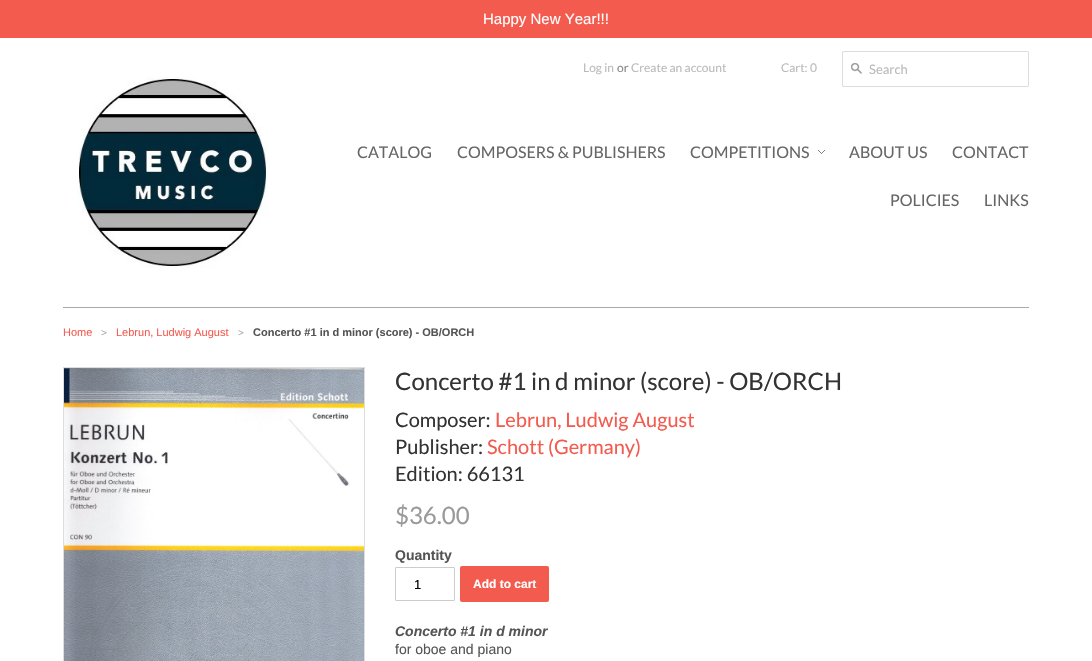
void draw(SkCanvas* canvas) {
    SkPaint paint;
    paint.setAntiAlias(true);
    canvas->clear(0xFFFFFFFF);
    paint.setColor(0xFFF45B4F);
    canvas->drawRect(SkRect::MakeXYWH(0, 0, 1092, 38), paint);
    SkFont font1(fontMgr->matchFamilyStyle("Liberation Sans", SkFontStyle::Normal()), 15);
    font1.setSubpixel(true);
    paint.setColor(0xFFFFFFFF);
    canvas->drawString("Happy New Year!!!", 483, 24, font1, paint);
    SkFont font2(fontMgr->matchFamilyStyle("Lato", SkFontStyle::Normal()), 12);
    font2.setSubpixel(true);
    paint.setColor(0xFFBBBBBB);
    canvas->drawString("Log in", 583, 72, font2, paint);
    paint.setColor(0xFF888888);
    canvas->drawString("or", 617, 72, font2, paint);
    paint.setColor(0xFFBBBBBB);
    canvas->drawString("Create an account", 631, 72, font2, paint);
    canvas->drawString("Cart: 0", 781, 72, font2, paint);
    paint.setStyle(SkPaint::kStroke_Style);
    paint.setStrokeWidth(1);
    paint.setColor(0xFFDDDDDD);
    canvas->drawRoundRect(SkRect::MakeXYWH(842.5f, 51.5f, 186, 35), 0.5f, 0.5f, paint);
    canvas->drawImageRect(SkImages::DeferredFromEncodedData(SkData::MakeFromFileName("img1.png")), SkRect::MakeXYWH(851, 63, 11, 11), SkSamplingOptions());
    SkFont font3(fontMgr->matchFamilyStyle("Lato", SkFontStyle::Normal()), 13);
    font3.setSubpixel(true);
    paint.setStyle(SkPaint::kFill_Style);
    paint.setColor(0xFFBBBBBB);
    canvas->drawString("Search", 869, 74, font3, paint);
    paint.setColor(0xFFAAAAAA);
    canvas->drawRect(SkRect::MakeXYWH(63, 307, 966, 1), paint);
    canvas->drawImageRect(SkImages::DeferredFromEncodedData(SkData::MakeFromFileName("img2.png")), SkRect::MakeXYWH(77, 77, 191, 191), SkSamplingOptions());
    SkFont font4(fontMgr->matchFamilyStyle("Lato", SkFontStyle::Normal()), 16);
    font4.setSubpixel(true);
    paint.setColor(0xFF666666);
    canvas->drawString("CATALOG", 357, 158, font4, paint);
    canvas->drawString("COMPOSERS & PUBLISHERS", 457, 158, font4, paint);
    canvas->drawImageRect(SkImages::DeferredFromEncodedData(SkData::MakeFromFileName("img3.png")), SkRect::MakeXYWH(818, 150, 7, 4), SkSamplingOptions());
    canvas->drawString("COMPETITIONS", 690, 158, font4, paint);
    canvas->drawString("ABOUT US", 849, 158, font4, paint);
    canvas->drawString("CONTACT", 952, 158, font4, paint);
    canvas->drawString("POLICIES", 890, 206, font4, paint);
    canvas->drawString("LINKS", 984, 206, font4, paint);
    SkFont font5(fontMgr->matchFamilyStyle("Liberation Sans", SkFontStyle::Normal()), 11);
    font5.setSubpixel(true);
    paint.setColor(0xFFF45B4F);
    canvas->drawString("Home", 63, 336, font5, paint);
    SkFont font6(fontMgr->matchFamilyStyle("Liberation Sans", SkFontStyle::Normal()), 10);
    font6.setSubpixel(true);
    paint.setColor(0xFFAAAAAA);
    canvas->drawString(">", 101, 336, font6, paint);
    paint.setColor(0xFFF45B4F);
    canvas->drawString("Lebrun, Ludwig August", 116, 336, font5, paint);
    paint.setColor(0xFFAAAAAA);
    canvas->drawString(">", 238, 336, font6, paint);
    SkFont font7(fontMgr->matchFamilyStyle("Liberation Sans", SkFontStyle::Bold()), 11);
    font7.setSubpixel(true);
    paint.setColor(0xFF555555);
    canvas->drawString("Concerto #1 in d minor (score) - OB/ORCH", 253, 336, font7, paint);
    paint.setStyle(SkPaint::kStroke_Style);
    paint.setColor(0xFFDDDDDD);
    canvas->drawRect(SkRect::MakeXYWH(63.5f, 367.5f, 301, 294), paint);
    canvas->drawImageRect(SkImages::DeferredFromEncodedData(SkData::MakeFromFileName("img4.png")), SkRect::MakeXYWH(64, 368, 300, 293), SkSamplingOptions());
    SkFont font8(fontMgr->matchFamilyStyle("Lato", SkFontStyle::Normal()), 24);
    font8.setSubpixel(true);
    paint.setStyle(SkPaint::kFill_Style);
    paint.setColor(0xFF333333);
    canvas->drawString("Concerto #1 in d minor (score) - OB/ORCH", 395, 390, font8, paint);
    SkFont font9(fontMgr->matchFamilyStyle("Lato", SkFontStyle::Normal()), 20);
    font9.setSubpixel(true);
    canvas->drawString("Composer:", 395, 427, font9, paint);
    paint.setColor(0xFFF45B4F);
    canvas->drawString("Lebrun, Ludwig August", 495, 427, font9, paint);
    paint.setColor(0xFF333333);
    canvas->drawString("Publisher:", 395, 454, font9, paint);
    paint.setColor(0xFFF45B4F);
    canvas->drawString("Schott (Germany)", 487, 454, font9, paint);
    paint.setColor(0xFF333333);
    canvas->drawString("Edition: 66131", 395, 481, font9, paint);
    paint.setColor(0xFF999999);
    canvas->drawString("$36.00", 395, 524, font8, paint);
    SkFont font10(fontMgr->matchFamilyStyle("Liberation Sans", SkFontStyle::Bold()), 14);
    font10.setSubpixel(true);
    paint.setColor(0xFF555555);
    canvas->drawString("Quantity", 395, 560, font10, paint);
    paint.setStyle(SkPaint::kStroke_Style);
    paint.setColor(0xFFCCCCCC);
    canvas->drawRoundRect(SkRect::MakeXYWH(395.5f, 567.5f, 59, 33), 0.5f, 0.5f, paint);
    SkFont font11(fontMgr->matchFamilyStyle("Liberation Sans", SkFontStyle::Normal()), 13);
    font11.setSubpixel(true);
    paint.setStyle(SkPaint::kFill_Style);
    paint.setColor(0xFF000000);
    canvas->drawString("1", 414, 589, font11, paint);
    paint.setColor(0xFFF45B4F);
    canvas->drawRoundRect(SkRect::MakeXYWH(460, 566, 89, 36), 2, 2, paint);
    SkFont font12(fontMgr->matchFamilyStyle("Liberation Sans", SkFontStyle::Bold()), 12);
    font12.setSubpixel(true);
    paint.setColor(0xFFFFFFFF);
    canvas->drawString("Add to cart", 473, 588, font12, paint);
    SkFont font13(fontMgr->matchFamilyStyle("Liberation Sans", SkFontStyle::BoldItalic()), 14);
    font13.setSubpixel(true);
    paint.setColor(0xFF555555);
    canvas->drawString("Concerto #1 in d minor", 395, 636, font13, paint);
    SkFont font14(fontMgr->matchFamilyStyle("Liberation Sans", SkFontStyle::Normal()), 14);
    font14.setSubpixel(true);
    canvas->drawString("for oboe and piano", 395, 654, font14, paint);
}
